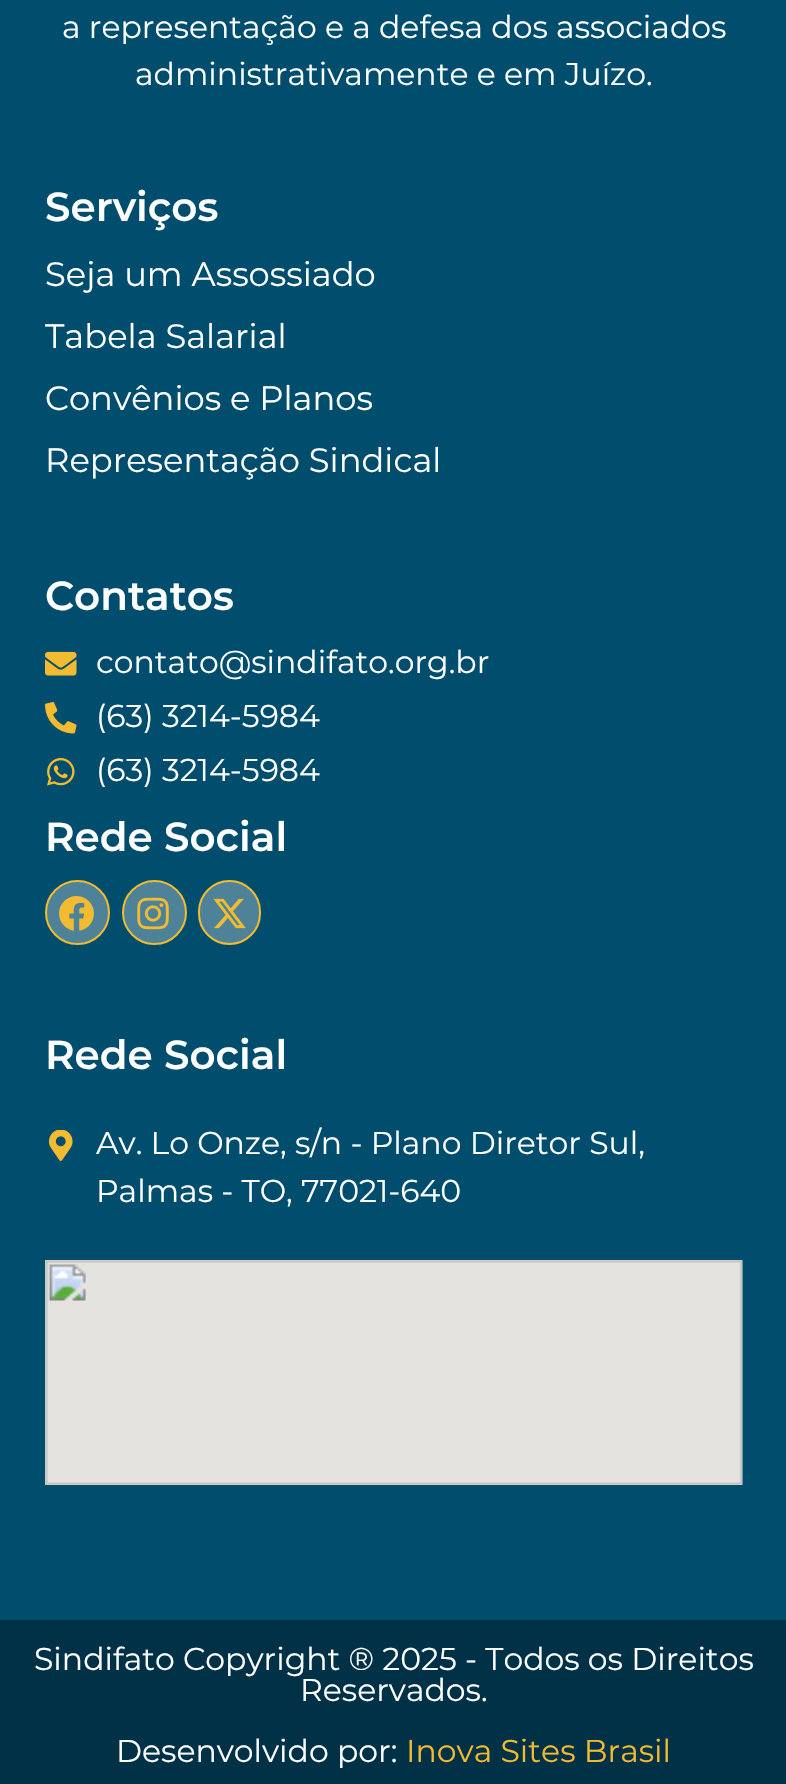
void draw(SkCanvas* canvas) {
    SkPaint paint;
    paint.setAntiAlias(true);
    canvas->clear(0xFF004D6D);
    SkFont font1(fontMgr->matchFamilyStyle("Montserrat", SkFontStyle::Normal()), 31.5f);
    font1.setSubpixel(true);
    paint.setColor(0xFFFFFFFF);
    canvas->drawString("a representação e a defesa dos associados", 62, 38, font1, paint);
    canvas->drawString("administrativamente e em Juízo.", 135, 85, font1, paint);
    SkFont font2(fontMgr->matchFamilyStyle("Montserrat", SkFontStyle(600, SkFontStyle::kNormal_Width, SkFontStyle::kUpright_Slant)), 40.5f);
    font2.setSubpixel(true);
    canvas->drawString("Serviços", 45, 221, font2, paint);
    SkFont font3(fontMgr->matchFamilyStyle("Montserrat", SkFontStyle::Normal()), 33.75f);
    font3.setSubpixel(true);
    canvas->drawString("Seja um Assossiado", 45, 286, font3, paint);
    canvas->drawString("Tabela Salarial", 45, 348, font3, paint);
    canvas->drawString("Convênios e Planos", 45, 410, font3, paint);
    canvas->drawString("Representação Sindical", 45, 472, font3, paint);
    canvas->drawString("Contatos", 45, 610, font2, paint);
    canvas->drawImageRect(SkImages::DeferredFromEncodedData(SkData::MakeFromFileName("img1.png")), SkRect::MakeXYWH(45, 651, 32, 25), SkSamplingOptions());
    canvas->drawString("contato@sindifato.org.br", 96, 673, font1, paint);
    canvas->drawImageRect(SkImages::DeferredFromEncodedData(SkData::MakeFromFileName("img2.png")), SkRect::MakeXYWH(45, 702, 32, 32), SkSamplingOptions());
    canvas->drawString("(63) 3214-5984", 96, 727, font1, paint);
    canvas->drawImageRect(SkImages::DeferredFromEncodedData(SkData::MakeFromFileName("img3.png")), SkRect::MakeXYWH(47, 758, 28, 28), SkSamplingOptions());
    canvas->drawString("(63) 3214-5984", 96, 781, font1, paint);
    canvas->drawString("Rede Social", 45, 851, font2, paint);
    paint.setColor(0xFF4D8299);
    canvas->drawCircle(77.5f, 912.5f, 31.5f, paint);
    paint.setStyle(SkPaint::kStroke_Style);
    paint.setStrokeWidth(2);
    paint.setColor(0xFFF3BB2F);
    canvas->drawCircle(77.5f, 912.5f, 31.5f, paint);
    canvas->drawImageRect(SkImages::DeferredFromEncodedData(SkData::MakeFromFileName("img4.png")), SkRect::MakeXYWH(59, 896, 35, 35), SkSamplingOptions());
    paint.setStyle(SkPaint::kFill_Style);
    paint.setColor(0xFF4D8299);
    canvas->drawCircle(154.5f, 912.5f, 31.5f, paint);
    paint.setStyle(SkPaint::kStroke_Style);
    paint.setColor(0xFFF3BB2F);
    canvas->drawCircle(154.5f, 912.5f, 31.5f, paint);
    canvas->drawImageRect(SkImages::DeferredFromEncodedData(SkData::MakeFromFileName("img5.png")), SkRect::MakeXYWH(137, 897, 32, 33), SkSamplingOptions());
    paint.setStyle(SkPaint::kFill_Style);
    paint.setColor(0xFF4D8299);
    canvas->drawRoundRect(SkRect::MakeXYWH(199, 881, 61, 63), 30.5f, 30.5f, paint);
    paint.setStyle(SkPaint::kStroke_Style);
    paint.setColor(0xFFF3BB2F);
    canvas->drawRoundRect(SkRect::MakeXYWH(199, 881, 61, 63), 30.5f, 30.5f, paint);
    canvas->drawImageRect(SkImages::DeferredFromEncodedData(SkData::MakeFromFileName("img6.png")), SkRect::MakeXYWH(213, 898, 33, 31), SkSamplingOptions());
    paint.setStyle(SkPaint::kFill_Style);
    paint.setColor(0xFFFFFFFF);
    canvas->drawString("Rede Social", 45, 1069, font2, paint);
    canvas->drawImageRect(SkImages::DeferredFromEncodedData(SkData::MakeFromFileName("img7.png")), SkRect::MakeXYWH(48, 1130, 25, 31), SkSamplingOptions());
    canvas->drawString("Av. Lo Onze, s/n - Plano Diretor Sul,", 96, 1154, font1, paint);
    canvas->drawString("Palmas - TO, 77021-640", 96, 1202, font1, paint);
    canvas->drawImageRect(SkImages::DeferredFromEncodedData(SkData::MakeFromFileName("img8.png")), SkRect::MakeXYWH(45, 1260, 698, 225), SkSamplingOptions());
    paint.setColor(0xFF003146);
    canvas->drawRect(SkRect::MakeXYWH(0, 1620, 786, 164), paint);
    paint.setColor(0xFFFFFFFF);
    canvas->drawString("Sindifato Copyright ® 2025 - Todos os Direitos", 34, 1670, font1, paint);
    canvas->drawString("Reservados.", 300, 1701, font1, paint);
    canvas->drawString("Desenvolvido por:", 116, 1762, font1, paint);
    paint.setColor(0xFFF3BB2F);
    canvas->drawString("Inova Sites Brasil", 406, 1762, font1, paint);
}
